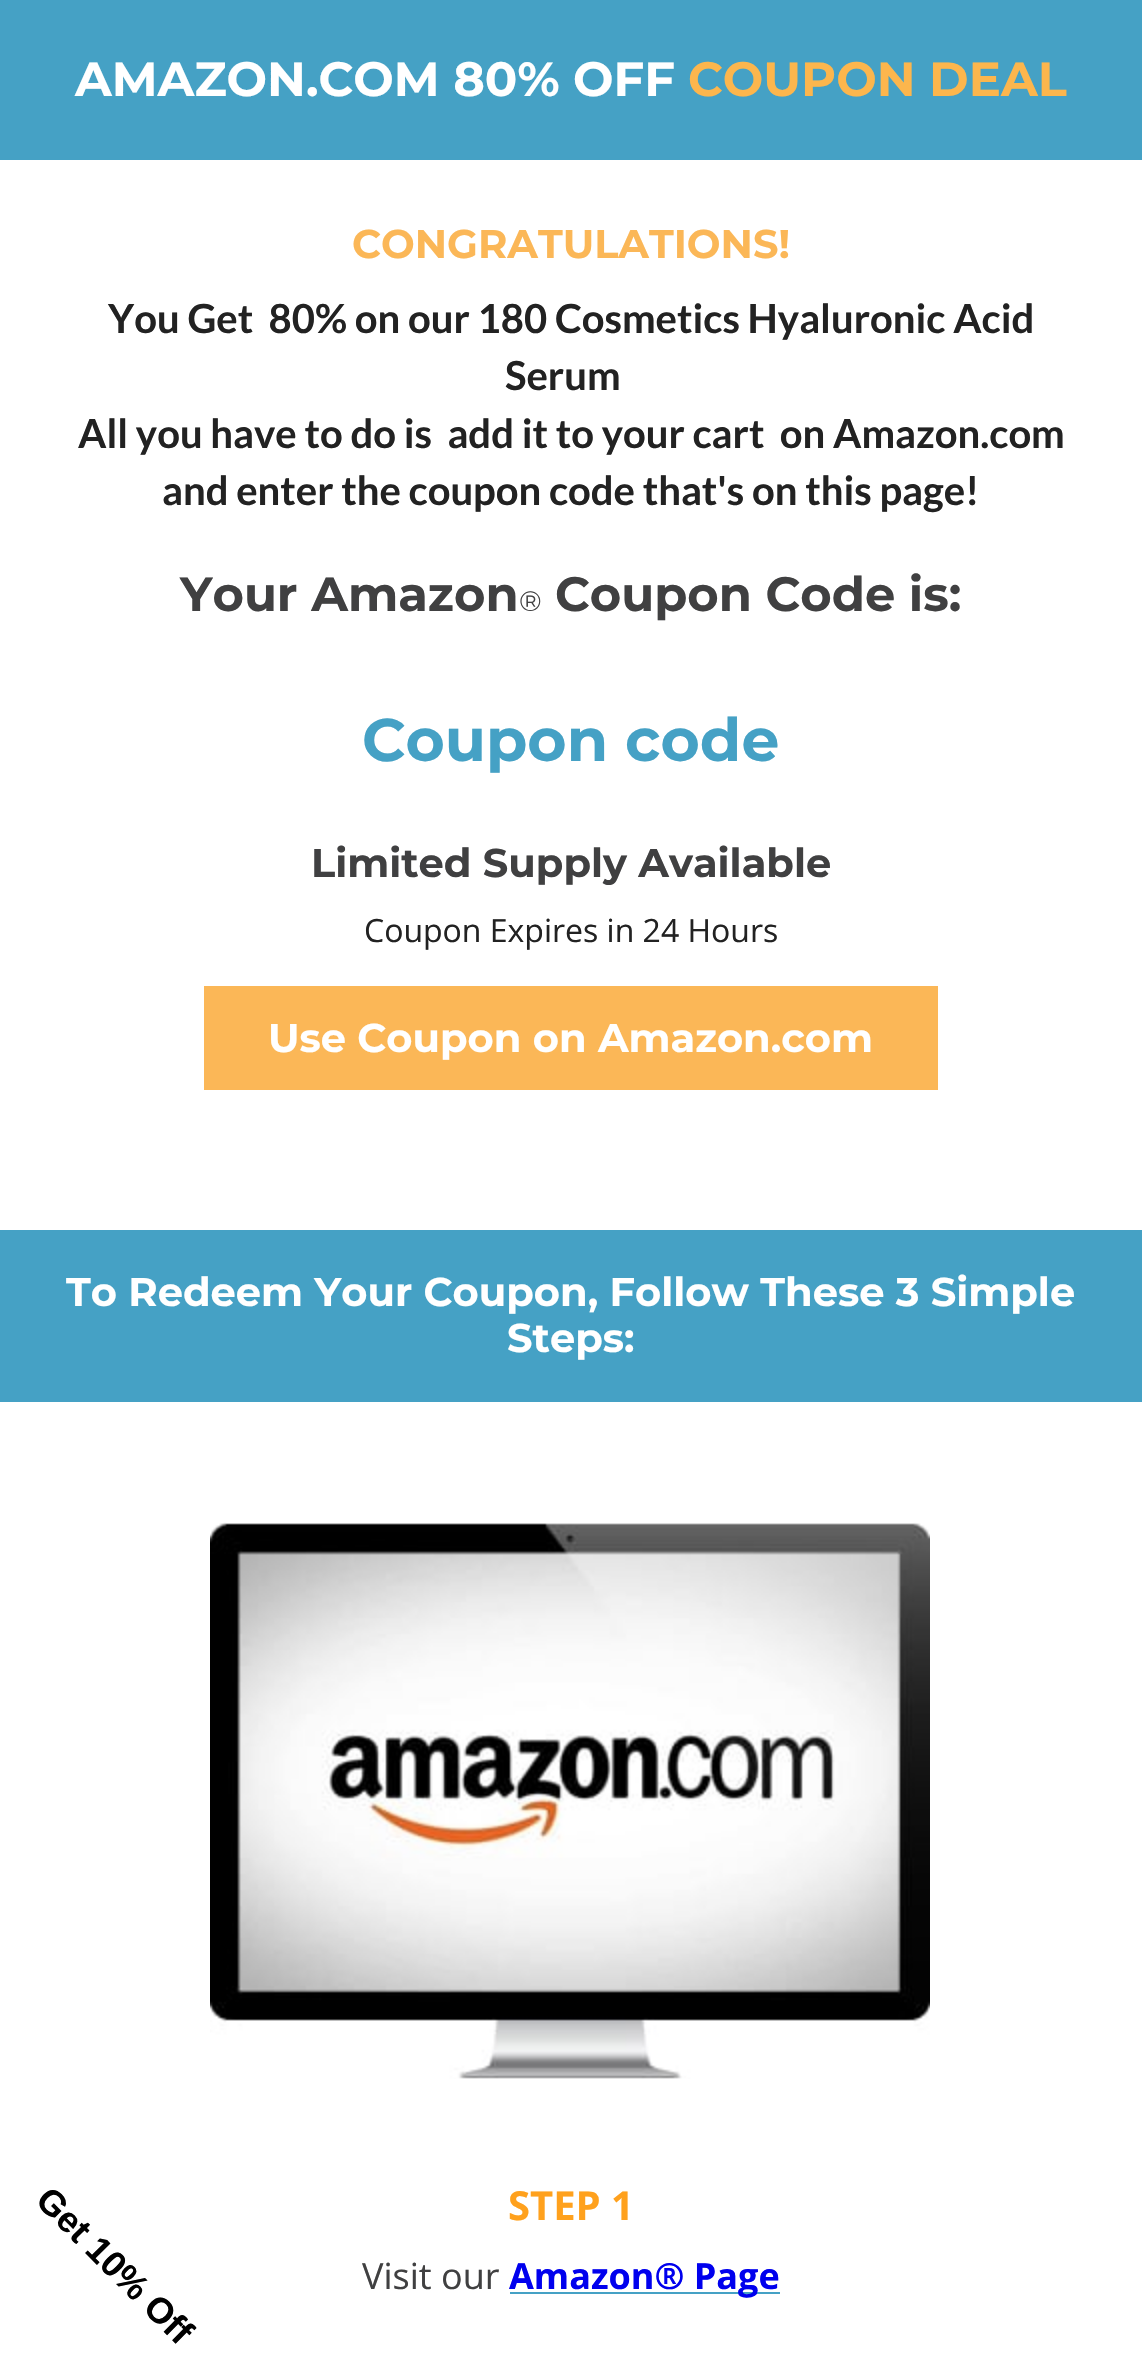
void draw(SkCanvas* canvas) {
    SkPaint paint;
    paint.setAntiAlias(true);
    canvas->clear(0xFF45A1C5);
    SkFont font1(fontMgr->matchFamilyStyle("Montserrat", SkFontStyle::Bold()), 48);
    font1.setSubpixel(true);
    paint.setColor(0xFFFFFFFF);
    canvas->drawString("AMAZON.COM 80% OFF", 75, 96, font1, paint);
    paint.setColor(0xFFFCB64D);
    canvas->drawString("COUPON DEAL", 688, 96, font1, paint);
    paint.setColor(0xFFFFFFFF);
    canvas->drawRect(SkRect::MakeXYWH(0, 160, 1142, 1070), paint);
    SkFont font2(fontMgr->matchFamilyStyle("Montserrat", SkFontStyle::Bold()), 40);
    font2.setSubpixel(true);
    paint.setColor(0xFFFBB757);
    canvas->drawString("CONGRATULATIONS!", 352, 258, font2, paint);
    SkFont font3(fontMgr->matchFamilyStyle("Lato", SkFontStyle::Bold()), 40);
    font3.setSubpixel(true);
    paint.setColor(0xFF222222);
    canvas->drawString("You Get  80% on our 180 Cosmetics Hyaluronic Acid", 108, 333, font3, paint);
    canvas->drawString("Serum", 505, 390, font3, paint);
    canvas->drawString("All you have to do is  add it to your cart  on Amazon.com", 78, 448, font3, paint);
    canvas->drawString("and enter the coupon code that's on this page!", 162, 505, font3, paint);
    paint.setColor(0xFF404041);
    canvas->drawString("Your Amazon", 180, 611, font1, paint);
    SkFont font4(fontMgr->matchFamilyStyle("Montserrat", SkFontStyle::Normal()), 28);
    font4.setSubpixel(true);
    canvas->drawString("®", 519, 611, font4, paint);
    canvas->drawString("Coupon Code is:", 555, 611, font1, paint);
    SkFont font5(fontMgr->matchFamilyStyle("Montserrat", SkFontStyle::Bold()), 60);
    font5.setSubpixel(true);
    paint.setColor(0xFF45A1C5);
    canvas->drawString("Coupon code", 362, 761, font5, paint);
    paint.setColor(0xFF404041);
    canvas->drawString("Limited Supply Available", 311, 877, font2, paint);
    SkFont font6(fontMgr->matchFamilyStyle("Open Sans", SkFontStyle::Normal()), 32);
    font6.setSubpixel(true);
    paint.setColor(0xFF222222);
    canvas->drawString("Coupon Expires in 24 Hours", 364, 942, font6, paint);
    paint.setColor(0xFFFBB757);
    canvas->drawRect(SkRect::MakeXYWH(204, 986, 734, 104), paint);
    paint.setColor(0xFFFFFFFF);
    canvas->drawString("Use Coupon on Amazon.com", 268, 1052, font2, paint);
    canvas->drawString("To Redeem Your Coupon, Follow These 3 Simple", 66, 1306, font2, paint);
    canvas->drawString("Steps:", 507, 1352, font2, paint);
    canvas->drawRect(SkRect::MakeXYWH(0, 1402, 1142, 978), paint);
    canvas->drawImageRect(SkImages::DeferredFromEncodedData(SkData::MakeFromFileName("img1.png")), SkRect::MakeXYWH(210, 1522, 720, 557), SkSamplingOptions());
    SkFont font7(fontMgr->matchFamilyStyle("Open Sans", SkFontStyle::Bold()), 40);
    font7.setSubpixel(true);
    paint.setColor(0xFFFFA11D);
    canvas->drawString("STEP 1", 508, 2220, font7, paint);
    SkFont font8(fontMgr->matchFamilyStyle("Open Sans", SkFontStyle::Normal()), 36);
    font8.setSubpixel(true);
    paint.setColor(0xFF404041);
    canvas->drawString("Visit our", 362, 2289, font8, paint);
    paint.setColor(0xFF45A1C5);
    canvas->drawRect(SkRect::MakeXYWH(510, 2292, 270, 2), paint);
    SkFont font9(fontMgr->matchFamilyStyle("Open Sans", SkFontStyle::Bold()), 36);
    font9.setSubpixel(true);
    paint.setColor(0xFF0000EE);
    canvas->drawString("Amazon® Page", 509, 2289, font9, paint);
    SkFont font10(fontMgr->matchFamilyStyle("Liberation Sans", SkFontStyle::Bold()), 36);
    font10.setSubpixel(true);
    paint.setColor(0xFF000000);
    canvas->save();
    canvas->rotate(45, 34, 2202);
    canvas->drawString("Get 10% Off", 34, 2202, font10, paint);
    canvas->restore();
}
